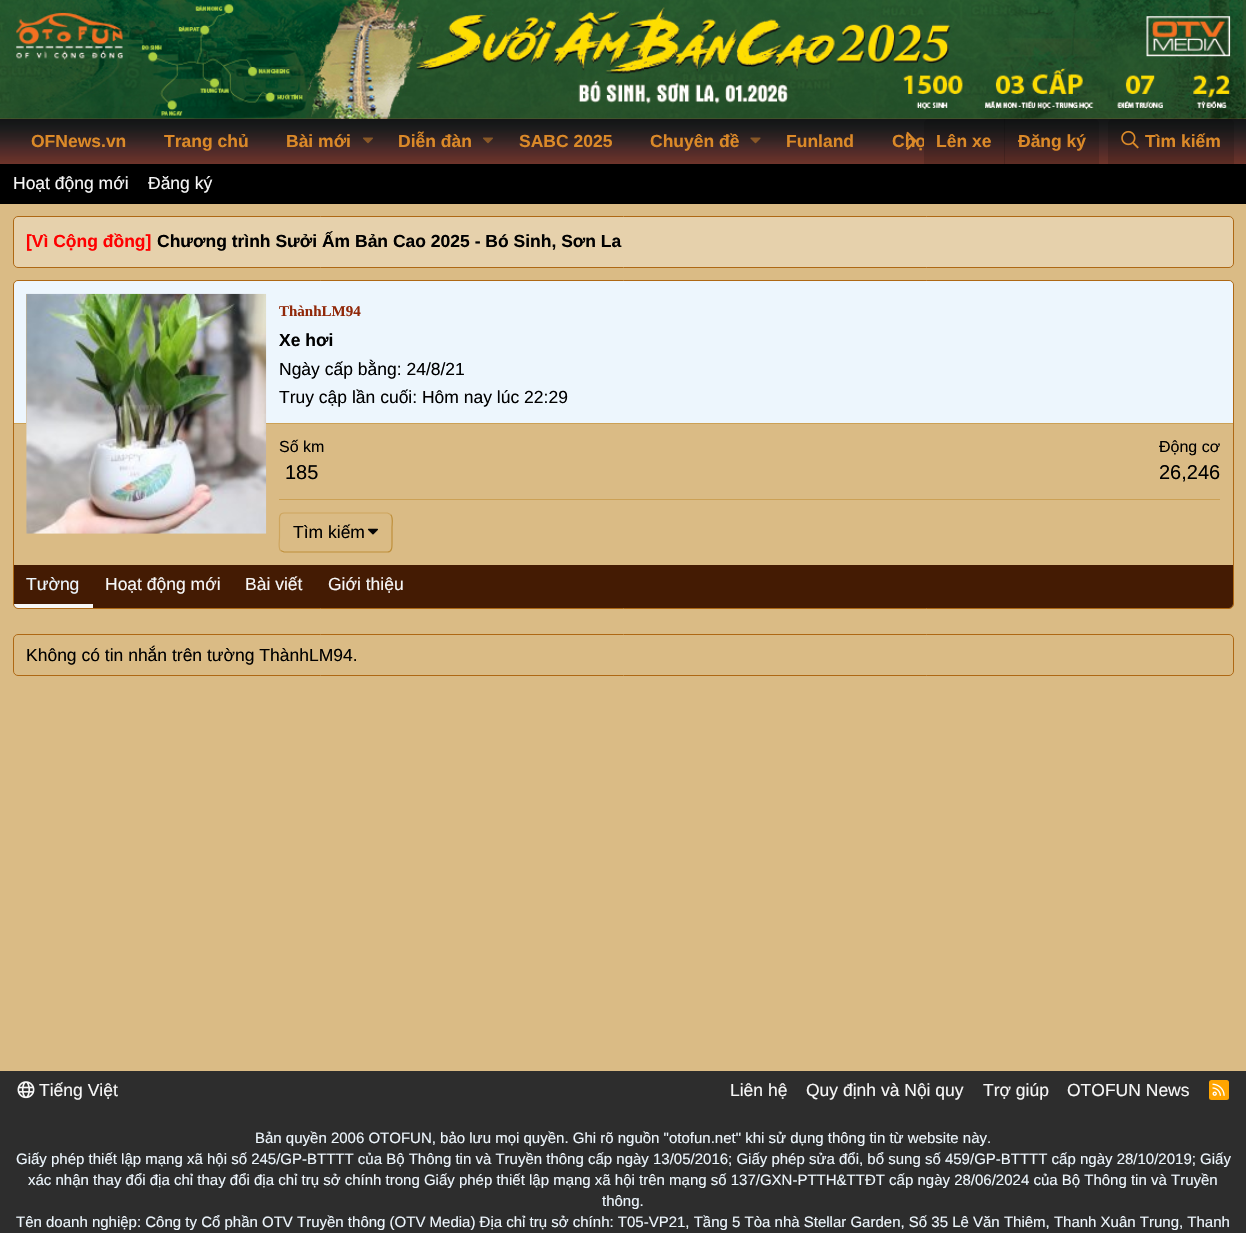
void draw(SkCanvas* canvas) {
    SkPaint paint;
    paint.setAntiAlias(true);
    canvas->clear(0xFFFFFFFF);
    canvas->drawImageRect(SkImages::DeferredFromEncodedData(SkData::MakeFromFileName("img1.png")), SkRect::MakeXYWH(0, 118, 1246, 1), SkSamplingOptions());
    canvas->drawImageRect(SkImages::DeferredFromEncodedData(SkData::MakeFromFileName("img2.png")), SkRect::MakeXYWH(0, 0, 1246, 119), SkSamplingOptions());
    canvas->drawImageRect(SkImages::DeferredFromEncodedData(SkData::MakeFromFileName("img3.png")), SkRect::MakeXYWH(0, 119, 1246, 45), SkSamplingOptions());
    SkFont font1(fontMgr->matchFamilyStyle("Liberation Sans", SkFontStyle::Bold()), 17.5f);
    font1.setSubpixel(true);
    paint.setColor(0xFFDB8928);
    canvas->drawString("OFNews.vn", 31, 147, font1, paint);
    canvas->drawString("Trang chủ", 164, 147, font1, paint);
    canvas->drawString("Bài mới", 286, 147, font1, paint);
    canvas->drawImageRect(SkImages::DeferredFromEncodedData(SkData::MakeFromFileName("img4.png")), SkRect::MakeXYWH(363, 137, 10, 7), SkSamplingOptions());
    canvas->drawString("Diễn đàn", 398, 147, font1, paint);
    canvas->drawImageRect(SkImages::DeferredFromEncodedData(SkData::MakeFromFileName("img4.png")), SkRect::MakeXYWH(483, 137, 10, 7), SkSamplingOptions());
    canvas->drawString("SABC 2025", 519, 147, font1, paint);
    canvas->drawString("Chuyên đề", 650, 147, font1, paint);
    canvas->drawImageRect(SkImages::DeferredFromEncodedData(SkData::MakeFromFileName("img5.png")), SkRect::MakeXYWH(750, 137, 11, 7), SkSamplingOptions());
    canvas->drawString("Funland", 786, 147, font1, paint);
    canvas->save();
    canvas->clipRect(SkRect::MakeXYWH(0, 119, 924, 45));
    canvas->drawString("Chợ", 892, 147, font1, paint);
    canvas->restore();
    canvas->drawImageRect(SkImages::DeferredFromEncodedData(SkData::MakeFromFileName("img6.png")), SkRect::MakeXYWH(906, 131, 10, 19), SkSamplingOptions());
    paint.setColor(0x26000000);
    canvas->drawPath(SkPathBuilder().moveTo(929, 119).lineTo(1094, 119).cubicTo(1097, 119, 1099, 121, 1099, 124).lineTo(1099, 164).lineTo(924, 164).lineTo(924, 124).cubicTo(924, 121, 926, 119, 929, 119).close().detach(), paint);
    paint.setColor(0xFFDB8928);
    canvas->drawString("Lên xe", 936, 147, font1, paint);
    paint.setColor(0x26000000);
    canvas->drawRect(SkRect::MakeXYWH(1004, 119, 1, 45), paint);
    paint.setColor(0xFFDB8928);
    canvas->drawString("Đăng ký", 1018, 147, font1, paint);
    paint.setColor(0x26000000);
    canvas->drawPath(SkPathBuilder().moveTo(1113, 119).lineTo(1229, 119).cubicTo(1232, 119, 1234, 121, 1234, 124).lineTo(1234, 164).lineTo(1108, 164).lineTo(1108, 124).cubicTo(1108, 121, 1110, 119, 1113, 119).close().detach(), paint);
    canvas->drawImageRect(SkImages::DeferredFromEncodedData(SkData::MakeFromFileName("img7.png")), SkRect::MakeXYWH(1121, 130, 18, 19), SkSamplingOptions());
    paint.setColor(0xFFDB8928);
    canvas->drawString("Tìm kiếm", 1145, 147, font1, paint);
    paint.setColor(0xFF000000);
    canvas->drawRect(SkRect::MakeXYWH(0, 164, 1246, 40), paint);
    SkFont font2(fontMgr->matchFamilyStyle("Liberation Sans", SkFontStyle::Normal()), 17.5f);
    font2.setSubpixel(true);
    paint.setColor(0xFFF7F7F7);
    canvas->drawString("Hoạt động mới", 13, 189, font2, paint);
    canvas->drawString("Đăng ký", 148, 189, font2, paint);
    paint.setColor(0xFFDABB85);
    canvas->drawRect(SkRect::MakeXYWH(0, 204, 1246, 867), paint);
    paint.setColor(0xFFE6D1AC);
    canvas->drawRoundRect(SkRect::MakeXYWH(13.5f, 216.5f, 1220, 51), 4.5f, 4.5f, paint);
    paint.setStyle(SkPaint::kStroke_Style);
    paint.setStrokeWidth(1);
    paint.setColor(0xFFAE6814);
    canvas->drawRoundRect(SkRect::MakeXYWH(13.5f, 216.5f, 1220, 51), 4.5f, 4.5f, paint);
    paint.setStyle(SkPaint::kFill_Style);
    paint.setColor(0xFFFF0000);
    canvas->drawString("[Vì Cộng đồng]", 26, 247, font1, paint);
    paint.setColor(0xFF000000);
    canvas->drawString("Chương trình Sưởi Ấm Bản Cao 2025 - Bó Sinh, Sơn La", 157, 247, font1, paint);
    paint.setStyle(SkPaint::kStroke_Style);
    paint.setColor(0xFFAE6814);
    canvas->drawRoundRect(SkRect::MakeXYWH(13.5f, 280.5f, 1220, 328), 4.5f, 4.5f, paint);
    paint.setStyle(SkPaint::kFill_Style);
    paint.setColor(0xFFEDF6FD);
    canvas->drawPath(SkPathBuilder().moveTo(18, 281).lineTo(1229, 281).cubicTo(1231, 281, 1233, 283, 1233, 285).lineTo(1233, 424).lineTo(14, 424).lineTo(14, 285).cubicTo(14, 283, 16, 281, 18, 281).close().detach(), paint);
    paint.setColor(0xFFCCA156);
    canvas->drawRect(SkRect::MakeXYWH(14, 423, 1219, 1), paint);
    paint.setColor(0xFFDABB85);
    canvas->drawRect(SkRect::MakeXYWH(26, 294, 240, 130), paint);
    canvas->drawImageRect(SkImages::DeferredFromEncodedData(SkData::MakeFromFileName("img8.png")), SkRect::MakeXYWH(26, 293, 241, 241), SkSamplingOptions());
    SkFont font3(fontMgr->matchFamilyStyle("Liberation Serif", SkFontStyle::Bold()), 15);
    font3.setSubpixel(true);
    paint.setColor(0xFF912809);
    canvas->drawString("ThànhLM94", 279, 316, font3, paint);
    paint.setColor(0xFF000000);
    canvas->drawString("Xe hơi", 279, 346, font1, paint);
    canvas->drawString("Ngày cấp bằng: 24/8/21", 279, 375, font2, paint);
    canvas->drawString("Truy cập lần cuối: Hôm nay lúc 22:29", 279, 403, font2, paint);
    SkFont font4(fontMgr->matchFamilyStyle("Liberation Sans", SkFontStyle::Normal()), 16);
    font4.setSubpixel(true);
    canvas->drawString("Số km", 279, 452, font4, paint);
    SkFont font5(fontMgr->matchFamilyStyle("Liberation Sans", SkFontStyle::Normal()), 20);
    font5.setSubpixel(true);
    canvas->drawString("185", 285, 479, font5, paint);
    canvas->drawString("Động cơ", 1159, 452, font4, paint);
    canvas->drawString("26,246", 1159, 479, font5, paint);
    paint.setColor(0xFFCCA156);
    canvas->drawRect(SkRect::MakeXYWH(279, 499, 941, 1), paint);
    paint.setStyle(SkPaint::kStroke_Style);
    paint.setStrokeWidth(1.2f);
    paint.setColor(0xFFBF8F3A);
    canvas->drawPath(SkPathBuilder().moveTo(390.5f, 514.5f).cubicTo(393.5f, 517, 392, 524.5f, 392, 527.5f).lineTo(392, 542.5f).cubicTo(392, 546, 392.5f, 552, 387.5f, 552).lineTo(284, 552).lineTo(280.5f, 550.5f).detach(), paint);
    paint.setColor(0xFFCEA55E);
    canvas->drawPath(SkPathBuilder().moveTo(280.5f, 550.5f).cubicTo(278, 548, 279.5f, 540.5f, 279.5f, 537.5f).lineTo(279.5f, 522.5f).cubicTo(279.5f, 519, 278.5f, 513, 284, 513).lineTo(387.5f, 513).lineTo(390.5f, 514.5f).detach(), paint);
    paint.setStyle(SkPaint::kFill_Style);
    paint.setColor(0xFF000000);
    canvas->drawString("Tìm kiếm", 293, 538, font2, paint);
    canvas->drawImageRect(SkImages::DeferredFromEncodedData(SkData::MakeFromFileName("img9.png")), SkRect::MakeXYWH(367, 528, 11, 7), SkSamplingOptions());
    paint.setColor(0xFF441B03);
    canvas->drawPath(SkPathBuilder().moveTo(14, 565).lineTo(1233, 565).lineTo(1233, 604).cubicTo(1233, 606, 1231, 608, 1229, 608).lineTo(18, 608).cubicTo(16, 608, 14, 606, 14, 604).close().detach(), paint);
    paint.setColor(0xFFF7F7F7);
    canvas->drawPath(SkPathBuilder().moveTo(14, 604).lineTo(93, 604).lineTo(93, 608).lineTo(18, 608).cubicTo(16, 608, 14, 606, 14, 604).close().detach(), paint);
    paint.setColor(0xFFEDF6FD);
    canvas->drawString("Tường", 26, 590, font2, paint);
    paint.setColor(0xFFF7F7F7);
    canvas->drawString("Hoạt động mới", 105, 590, font2, paint);
    canvas->drawString("Bài viết", 245, 590, font2, paint);
    canvas->drawString("Giới thiệu", 328, 590, font2, paint);
    paint.setStyle(SkPaint::kStroke_Style);
    paint.setStrokeWidth(1);
    paint.setColor(0xFFAE6814);
    canvas->drawRoundRect(SkRect::MakeXYWH(13.5f, 634.5f, 1220, 41), 4.5f, 4.5f, paint);
    paint.setStyle(SkPaint::kFill_Style);
    paint.setColor(0xFF000000);
    canvas->drawString("Không có tin nhắn trên tường ThànhLM94.", 26, 661, font2, paint);
    paint.setColor(0xFF2D2D2D);
    canvas->drawRect(SkRect::MakeXYWH(0, 1071, 1246, 162), paint);
    canvas->drawImageRect(SkImages::DeferredFromEncodedData(SkData::MakeFromFileName("img10.png")), SkRect::MakeXYWH(17, 1081, 18, 18), SkSamplingOptions());
    paint.setColor(0xFFF7F7F7);
    canvas->drawString("Tiếng Việt", 39, 1096, font2, paint);
    canvas->drawString("Liên hệ", 730, 1096, font2, paint);
    canvas->drawString("Quy định và Nội quy", 806, 1096, font2, paint);
    canvas->drawString("Trợ giúp", 983, 1096, font2, paint);
    canvas->drawString("OTOFUN News", 1067, 1096, font2, paint);
    paint.setColor(0xFFFFA500);
    canvas->drawRoundRect(SkRect::MakeXYWH(1209, 1080, 20, 20), 2.5f, 2.5f, paint);
    canvas->drawImageRect(SkImages::DeferredFromEncodedData(SkData::MakeFromFileName("img11.png")), SkRect::MakeXYWH(1212, 1083, 13, 13), SkSamplingOptions());
    SkFont font6(fontMgr->matchFamilyStyle("Liberation Sans", SkFontStyle::Normal()), 15);
    font6.setSubpixel(true);
    paint.setColor(0xFFEDF6FD);
    canvas->drawString("Bản quyền 2006 OTOFUN, bảo lưu mọi quyền. Ghi rõ nguồn \"otofun.net\" khi sử dụng thông tin từ website này.", 255, 1143, font6, paint);
    canvas->drawString("Giấy phép thiết lập mạng xã hội số 245/GP-BTTTT của Bộ Thông tin và Truyền thông cấp ngày 13/05/2016; Giấy phép sửa đổi, bổ sung số 459/GP-BTTTT cấp ngày 28/10/2019; Giấy", 16, 1164, font6, paint);
    canvas->drawString("xác nhận thay đổi địa chỉ thay đổi địa chỉ trụ sở chính trong Giấy phép thiết lập mạng xã hội trên mạng số 137/GXN-PTTH&TTĐT cấp ngày 28/06/2024 của Bộ Thông tin và Truyền", 28, 1185, font6, paint);
    canvas->drawString("thông.", 602, 1206, font6, paint);
    canvas->drawString("Tên doanh nghiệp: Công ty Cổ phần OTV Truyền thông (OTV Media) Địa chỉ trụ sở chính: T05-VP21, Tầng 5 Tòa nhà Stellar Garden, Số 35 Lê Văn Thiêm, Thanh Xuân Trung, Thanh", 16, 1227, font6, paint);
}
